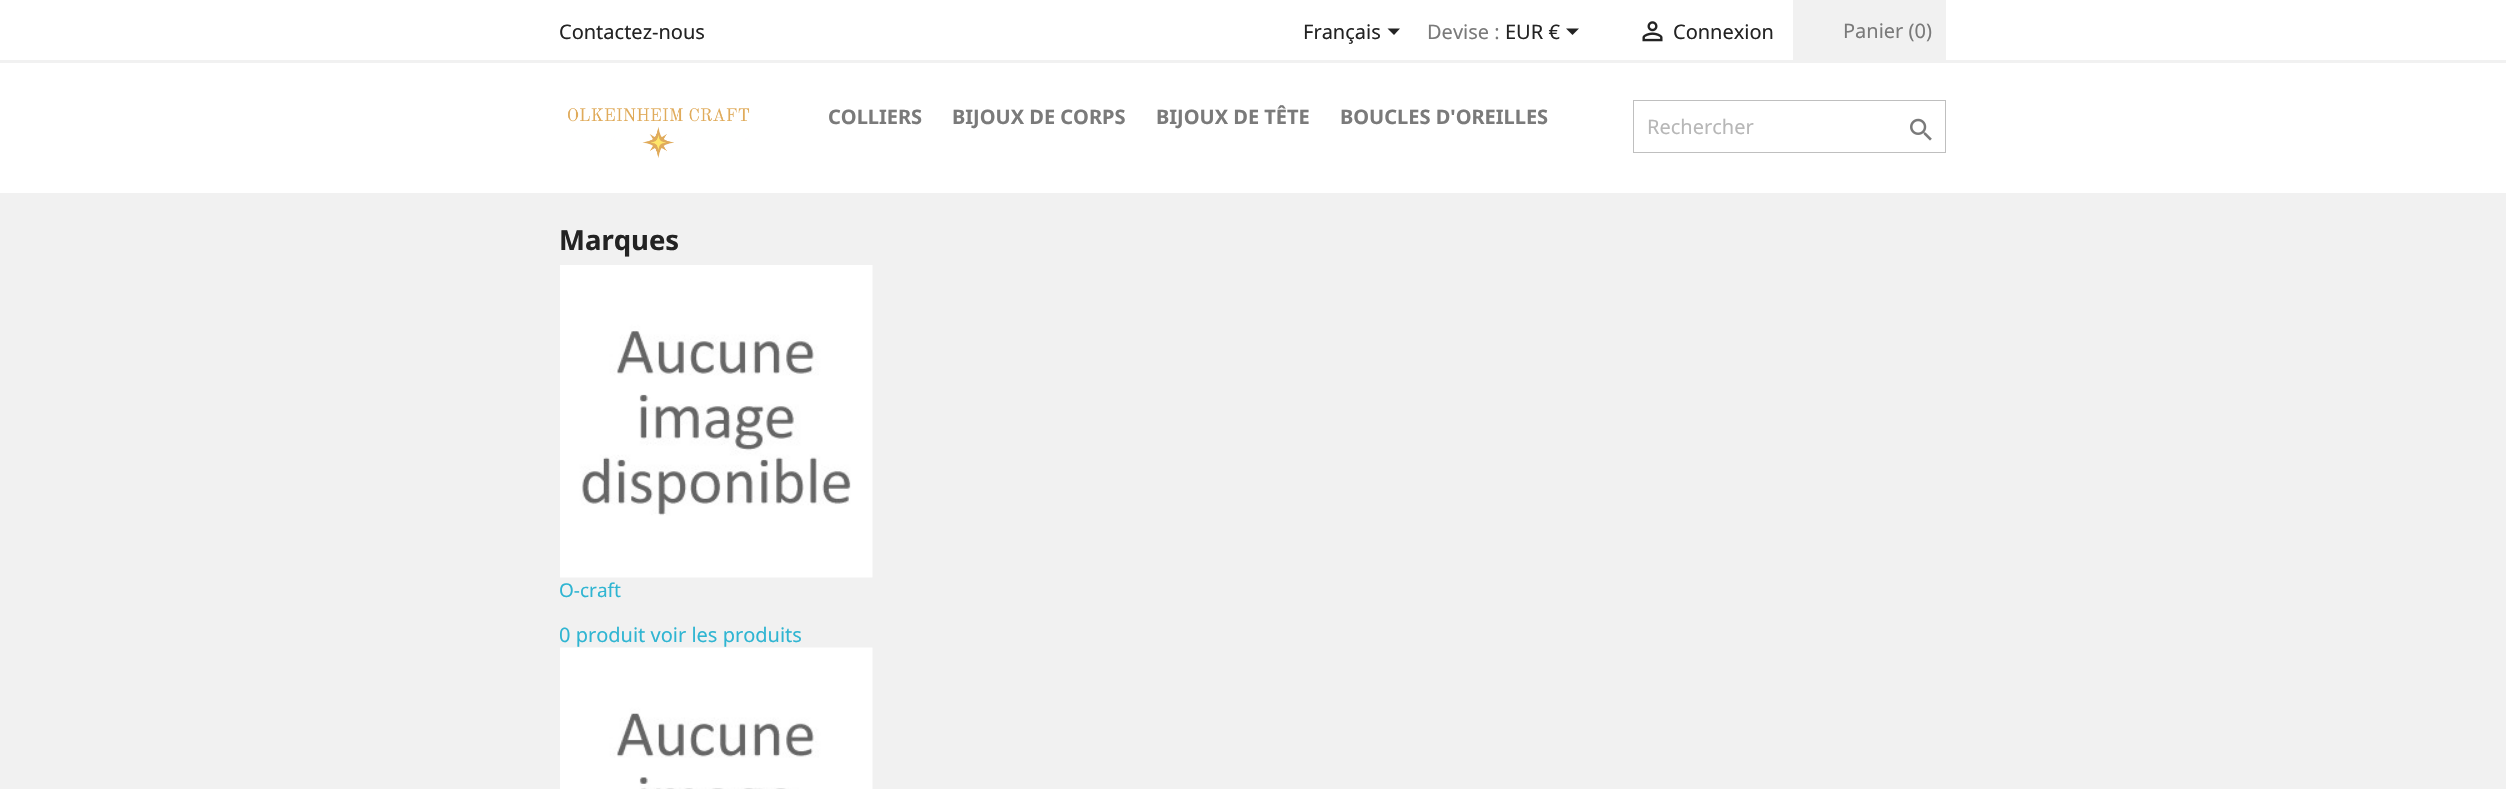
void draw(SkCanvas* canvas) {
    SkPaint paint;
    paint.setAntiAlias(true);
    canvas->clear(0xFFFFFFFF);
    paint.setColor(0xFFF1F1F1);
    canvas->drawRect(SkRect::MakeXYWH(0, 60, 2506, 3), paint);
    SkFont font1(fontMgr->matchFamilyStyle("Noto Sans", SkFontStyle::Normal()), 20);
    font1.setSubpixel(true);
    paint.setColor(0xFF232323);
    canvas->drawString("Contactez-nous", 559, 39, font1, paint);
    canvas->drawString("Français", 1303, 39, font1, paint);
    canvas->drawPath(SkPathBuilder().moveTo(1387.5f, 28.5f).lineTo(1400, 28.5f).lineTo(1394, 35).close().detach(), paint);
    paint.setColor(0xFF7A7A7A);
    canvas->drawString("Devise :", 1427, 39, font1, paint);
    paint.setColor(0xFF232323);
    canvas->drawString("EUR €", 1505, 39, font1, paint);
    canvas->drawPath(SkPathBuilder().moveTo(1566, 28.5f).lineTo(1579, 28.5f).lineTo(1572.5f, 35).close().detach(), paint);
    canvas->drawImageRect(SkImages::DeferredFromEncodedData(SkData::MakeFromFileName("img1.png")), SkRect::MakeXYWH(1642, 21, 21, 21), SkSamplingOptions());
    canvas->drawString("Connexion", 1673, 39, font1, paint);
    paint.setColor(0xFFF1F1F1);
    canvas->drawRect(SkRect::MakeXYWH(1793, 0, 153, 60), paint);
    paint.setColor(0xFF7A7A7A);
    canvas->drawString("Panier (0)", 1843, 38, font1, paint);
    canvas->drawImageRect(SkImages::DeferredFromEncodedData(SkData::MakeFromFileName("img2.png")), SkRect::MakeXYWH(568, 108, 182, 50), SkSamplingOptions());
    SkFont font2(fontMgr->matchFamilyStyle("Noto Sans", SkFontStyle::Bold()), 20);
    font2.setSubpixel(true);
    canvas->drawString("COLLIERS", 828, 124, font2, paint);
    canvas->drawString("BIJOUX DE CORPS", 952, 124, font2, paint);
    canvas->drawString("BIJOUX DE TÊTE", 1156, 124, font2, paint);
    canvas->drawString("BOUCLES D'OREILLES", 1340, 124, font2, paint);
    paint.setStyle(SkPaint::kStroke_Style);
    paint.setStrokeWidth(1);
    paint.setColor(0xFFBFBFBF);
    canvas->drawRect(SkRect::MakeXYWH(1633.5f, 100.5f, 312, 52), paint);
    paint.setStyle(SkPaint::kFill_Style);
    paint.setColor(0xFFB7B7B7);
    canvas->drawString("Rechercher", 1647, 134, font1, paint);
    canvas->drawImageRect(SkImages::DeferredFromEncodedData(SkData::MakeFromFileName("img3.png")), SkRect::MakeXYWH(1910, 118, 22, 23), SkSamplingOptions());
    paint.setColor(0xFFF1F1F1);
    canvas->drawRect(SkRect::MakeXYWH(0, 193, 2506, 596), paint);
    SkFont font3(fontMgr->matchFamilyStyle("Noto Sans", SkFontStyle::Bold()), 27.5f);
    font3.setSubpixel(true);
    paint.setColor(0xFF232323);
    canvas->drawString("Marques", 559, 250, font3, paint);
    canvas->drawImageRect(SkImages::DeferredFromEncodedData(SkData::MakeFromFileName("img4.png")), SkRect::MakeXYWH(560, 265, 313, 313), SkSamplingOptions());
    SkFont font4(fontMgr->matchFamilyStyle("Noto Sans", SkFontStyle::Normal()), 19);
    font4.setSubpixel(true);
    paint.setColor(0xFF2FB5D2);
    canvas->drawString("O-craft", 559, 597, font4, paint);
    canvas->drawString("0 produit voir les produits", 559, 642, font1, paint);
    canvas->drawImageRect(SkImages::DeferredFromEncodedData(SkData::MakeFromFileName("img5.png")), SkRect::MakeXYWH(560, 647, 313, 142), SkSamplingOptions());
}
